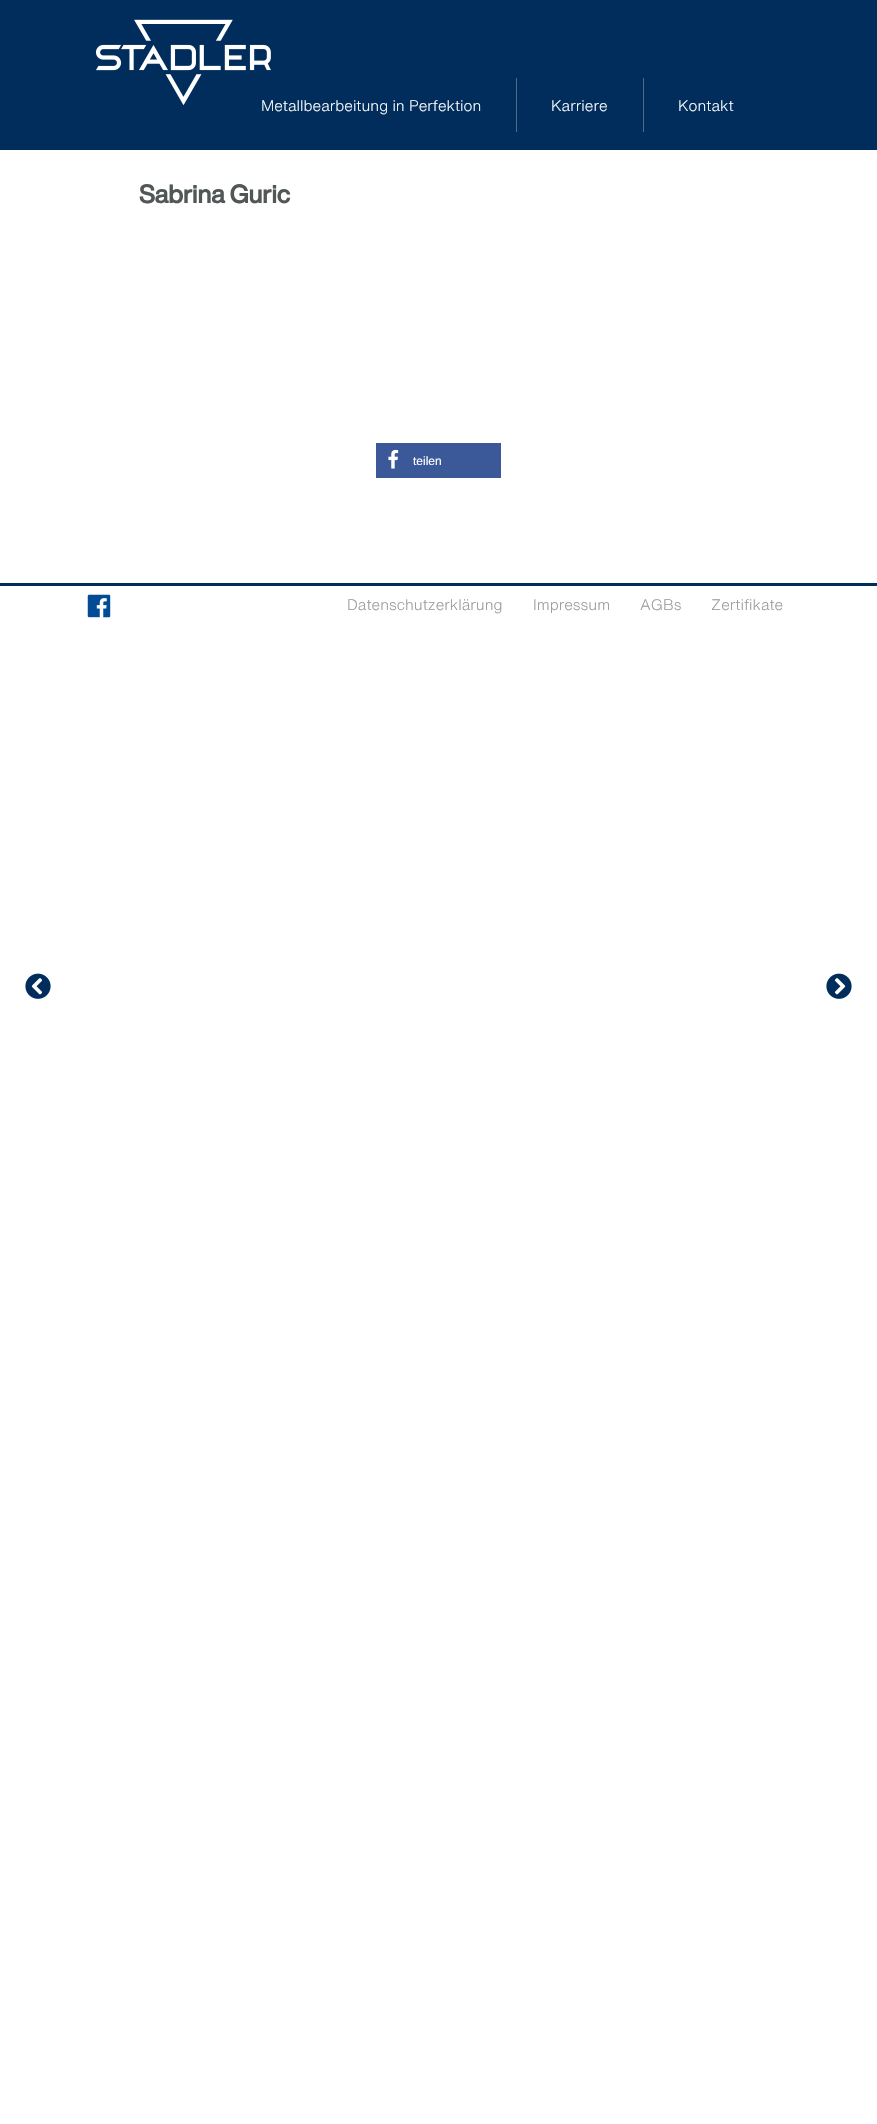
void draw(SkCanvas* canvas) {
    SkPaint paint;
    paint.setAntiAlias(true);
    canvas->clear(0xFFFFFFFF);
    paint.setColor(0xFF002D5B);
    canvas->drawRect(SkRect::MakeXYWH(0, 0, 877, 150), paint);
    canvas->drawImageRect(SkImages::DeferredFromEncodedData(SkData::MakeFromFileName("img1.png")), SkRect::MakeXYWH(95, 19, 176, 87), SkSamplingOptions());
    SkFont font1(fontMgr->matchFamilyStyle("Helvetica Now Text", SkFontStyle(300, SkFontStyle::kNormal_Width, SkFontStyle::kUpright_Slant)), 15);
    font1.setSubpixel(true);
    paint.setColor(0xFFFFFFFF);
    canvas->drawString("Metallbearbeitung in Perfektion", 261, 111, font1, paint);
    paint.setColor(0xFF4D6C8C);
    canvas->drawRect(SkRect::MakeXYWH(516, 78, 1, 54), paint);
    paint.setColor(0xFFFFFFFF);
    canvas->drawString("Karriere", 551, 111, font1, paint);
    paint.setColor(0xFF4D6C8C);
    canvas->drawRect(SkRect::MakeXYWH(643, 78, 1, 54), paint);
    paint.setColor(0xFFFFFFFF);
    canvas->drawString("Kontakt", 678, 111, font1, paint);
    SkFont font2(fontMgr->matchFamilyStyle("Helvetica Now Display", SkFontStyle::Bold()), 25);
    font2.setSubpixel(true);
    paint.setColor(0xFF515656);
    canvas->drawString("Sabrina Guric", 139, 203, font2, paint);
    paint.setColor(0xFF3B5998);
    canvas->drawRect(SkRect::MakeXYWH(376, 443, 125, 35), paint);
    canvas->drawImageRect(SkImages::DeferredFromEncodedData(SkData::MakeFromFileName("img2.png")), SkRect::MakeXYWH(388, 449, 11, 20), SkSamplingOptions());
    SkFont font3(fontMgr->matchFamilyStyle("Liberation Sans", SkFontStyle::Normal()), 12);
    font3.setSubpixel(true);
    paint.setColor(0xFFFFFFFF);
    canvas->drawString("teilen", 413, 465, font3, paint);
    paint.setColor(0xFF002D5B);
    canvas->drawRect(SkRect::MakeXYWH(0, 583, 877, 3), paint);
    canvas->drawImageRect(SkImages::DeferredFromEncodedData(SkData::MakeFromFileName("img3.png")), SkRect::MakeXYWH(87, 594, 24, 24), SkSamplingOptions());
    paint.setColor(0xFF999999);
    canvas->drawString("Datenschutzerklärung", 347, 610, font1, paint);
    canvas->drawString("Impressum", 533, 610, font1, paint);
    canvas->drawString("AGBs", 640, 610, font1, paint);
    canvas->drawString("Zertifikate", 711, 610, font1, paint);
    canvas->drawImageRect(SkImages::DeferredFromEncodedData(SkData::MakeFromFileName("img4.png")), SkRect::MakeXYWH(25, 973, 26, 26), SkSamplingOptions());
    canvas->drawImageRect(SkImages::DeferredFromEncodedData(SkData::MakeFromFileName("img5.png")), SkRect::MakeXYWH(826, 973, 26, 26), SkSamplingOptions());
}
